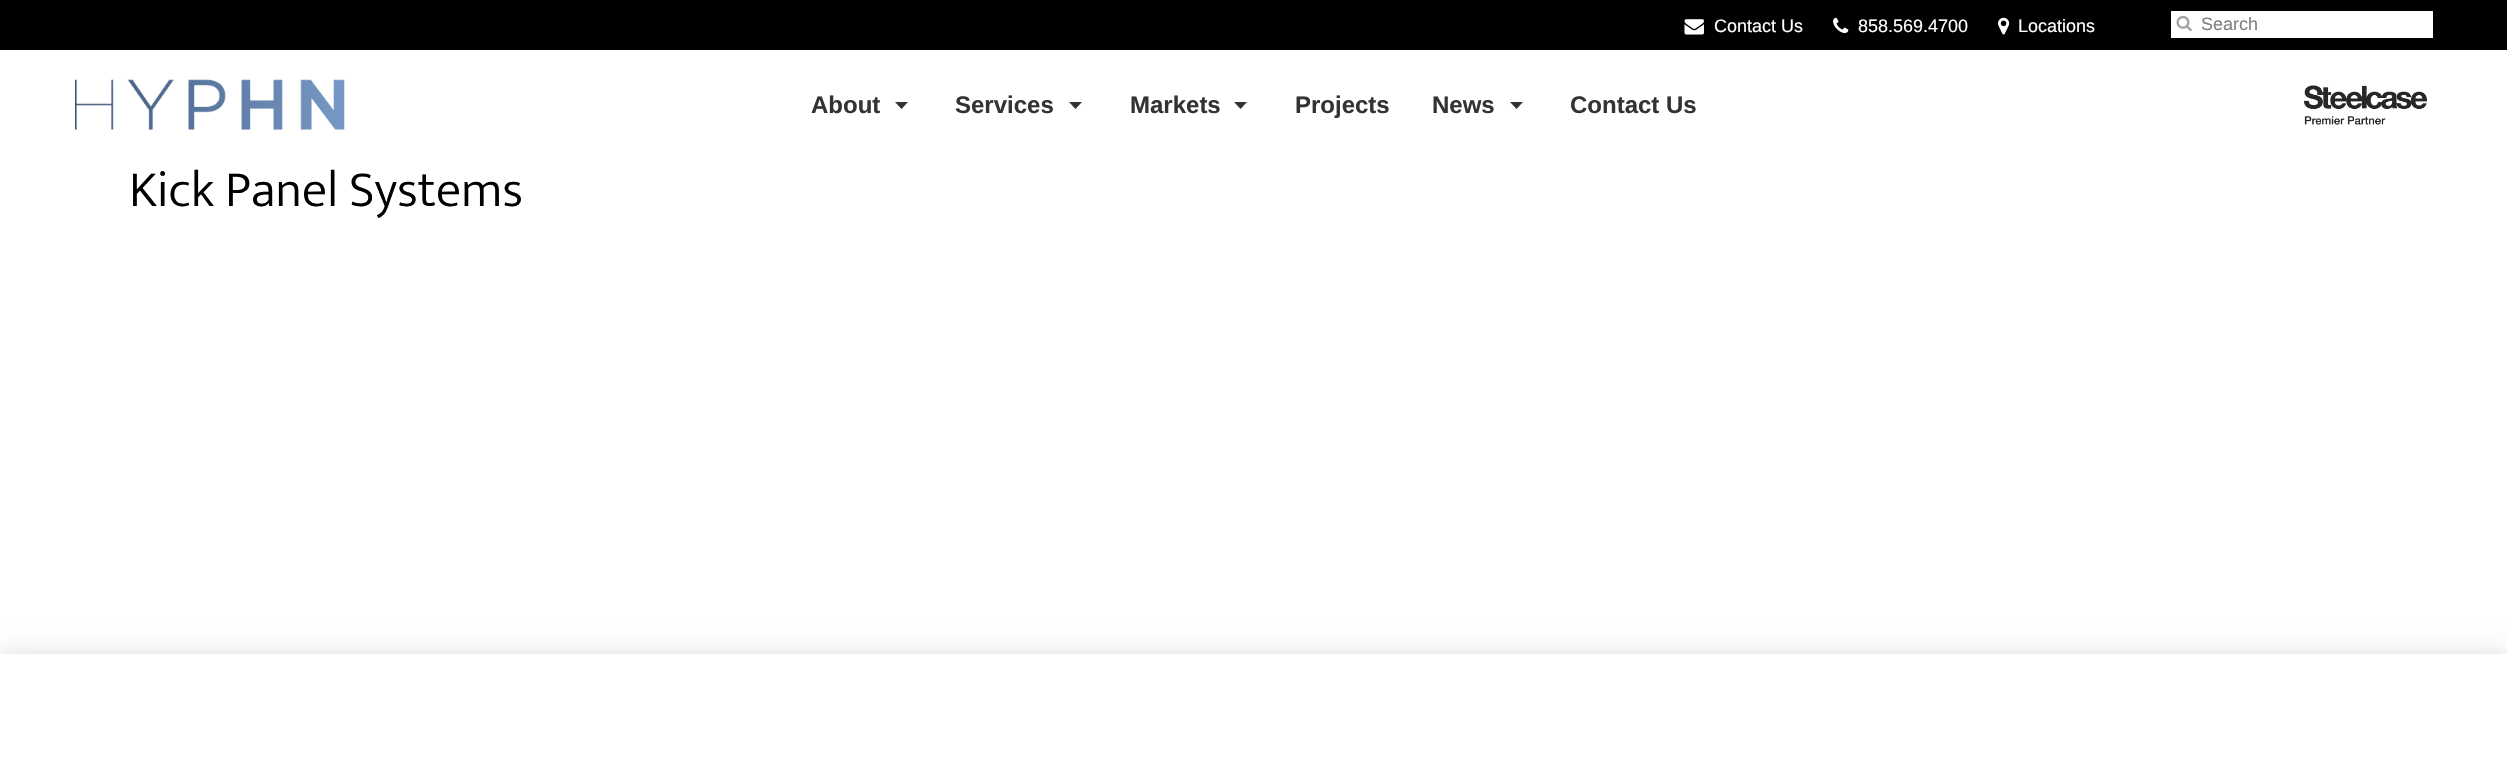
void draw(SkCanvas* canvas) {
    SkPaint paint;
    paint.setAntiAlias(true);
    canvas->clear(0xFFFFFFFF);
    paint.setColor(0xFF000000);
    canvas->drawRect(SkRect::MakeXYWH(0, 0, 2507, 50), paint);
    canvas->drawImageRect(SkImages::DeferredFromEncodedData(SkData::MakeFromFileName("img1.png")), SkRect::MakeXYWH(1684, 19, 20, 16), SkSamplingOptions());
    SkFont font1(fontMgr->matchFamilyStyle("Liberation Sans", SkFontStyle::Normal()), 18);
    font1.setSubpixel(true);
    paint.setColor(0xFFFFFFFF);
    canvas->drawString("Contact Us", 1714, 32, font1, paint);
    canvas->drawImageRect(SkImages::DeferredFromEncodedData(SkData::MakeFromFileName("img2.png")), SkRect::MakeXYWH(1833, 17, 16, 17), SkSamplingOptions());
    canvas->drawString("858.569.4700", 1858, 32, font1, paint);
    canvas->drawImageRect(SkImages::DeferredFromEncodedData(SkData::MakeFromFileName("img3.png")), SkRect::MakeXYWH(1998, 17, 12, 18), SkSamplingOptions());
    canvas->drawString("Locations", 2018, 32, font1, paint);
    canvas->drawRect(SkRect::MakeXYWH(2171, 11, 262, 27), paint);
    canvas->drawImageRect(SkImages::DeferredFromEncodedData(SkData::MakeFromFileName("img4.png")), SkRect::MakeXYWH(2176, 15, 16, 17), SkSamplingOptions());
    paint.setColor(0xFF7F8180);
    canvas->drawString("Search", 2201, 30, font1, paint);
    canvas->drawImageRect(SkImages::DeferredFromEncodedData(SkData::MakeFromFileName("img5.png")), SkRect::MakeXYWH(75, 79, 270, 51), SkSamplingOptions());
    SkFont font2(fontMgr->matchFamilyStyle("Liberation Sans", SkFontStyle::Bold()), 24);
    font2.setSubpixel(true);
    paint.setColor(0xFF333333);
    canvas->drawString("About", 811, 113, font2, paint);
    canvas->drawPath(SkPathBuilder().moveTo(895, 102).lineTo(901.5f, 109).lineTo(908, 102).close().detach(), paint);
    canvas->drawString("Services", 955, 113, font2, paint);
    canvas->drawPath(SkPathBuilder().moveTo(1069, 102).lineTo(1075.5f, 109).lineTo(1082, 102).close().detach(), paint);
    canvas->drawString("Markets", 1130, 113, font2, paint);
    canvas->drawPath(SkPathBuilder().moveTo(1234, 102).lineTo(1240.5f, 109).lineTo(1247, 102).close().detach(), paint);
    canvas->drawString("Projects", 1295, 113, font2, paint);
    canvas->drawString("News", 1432, 113, font2, paint);
    canvas->drawPath(SkPathBuilder().moveTo(1510, 102).lineTo(1516.5f, 109).lineTo(1523, 102).close().detach(), paint);
    canvas->drawString("Contact Us", 1570, 113, font2, paint);
    canvas->drawImageRect(SkImages::DeferredFromEncodedData(SkData::MakeFromFileName("img6.png")), SkRect::MakeXYWH(2304, 85, 123, 40), SkSamplingOptions());
    SkFont font3(fontMgr->matchFamilyStyle("Ek Mukta", SkFontStyle(300, SkFontStyle::kNormal_Width, SkFontStyle::kUpright_Slant)), 51);
    font3.setSubpixel(true);
    paint.setColor(0xFF000000);
    canvas->drawString("Kick Panel Systems", 129, 206, font3, paint);
    paint.setColor(0x21000000);
    paint.setMaskFilter(SkMaskFilter::MakeBlur(kNormal_SkBlurStyle, 11));
    canvas->drawRect(SkRect::MakeXYWH(0, 653, 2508, 120), paint);
    paint.setMaskFilter(nullptr);
    paint.setColor(0xFFFFFFFF);
    canvas->drawRect(SkRect::MakeXYWH(0, 654, 2507, 120), paint);
}
